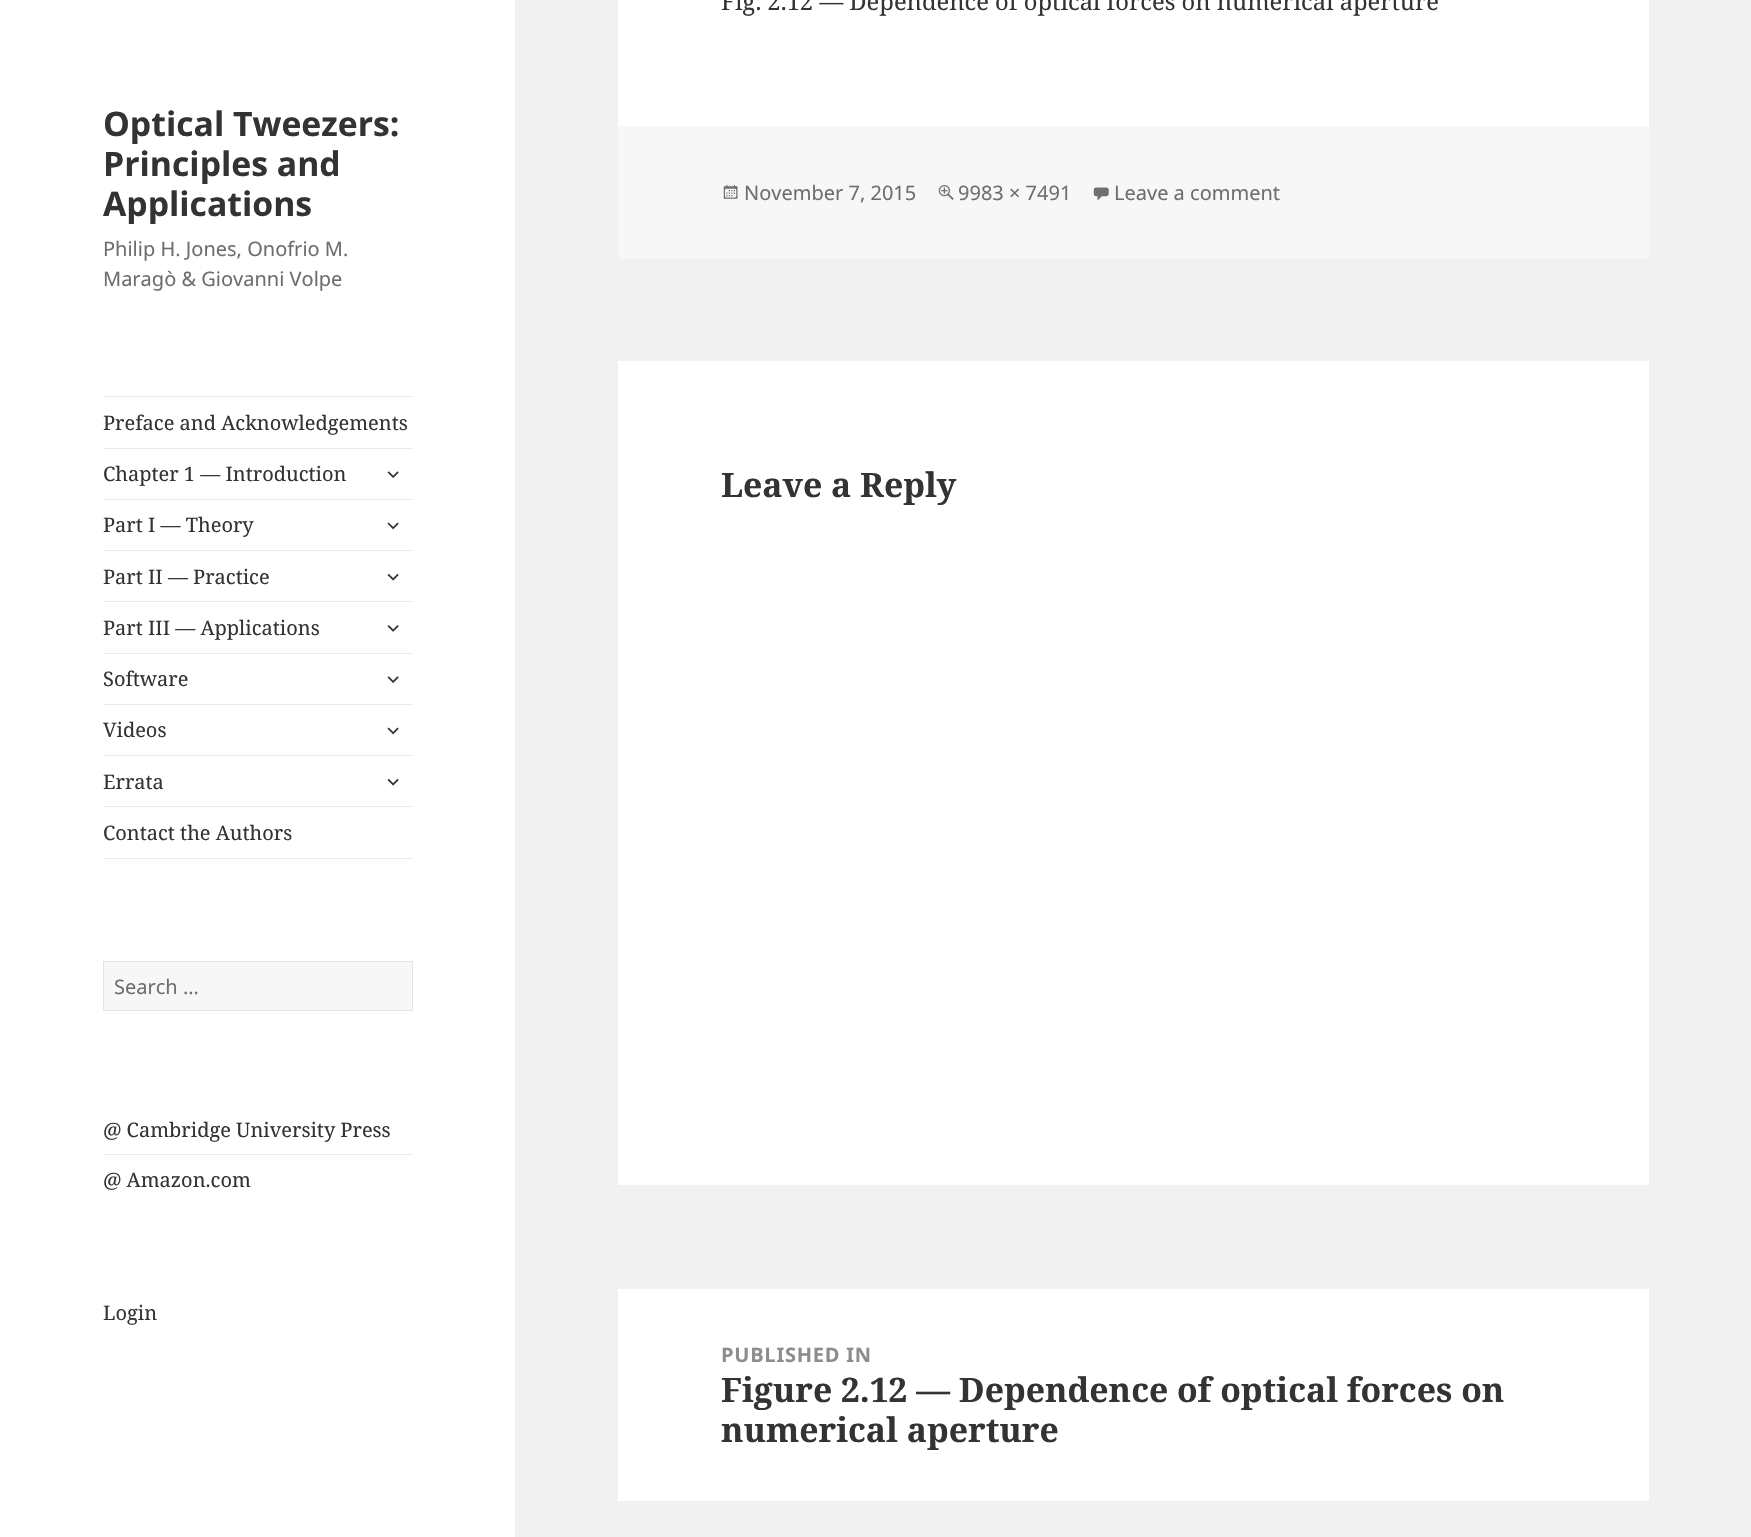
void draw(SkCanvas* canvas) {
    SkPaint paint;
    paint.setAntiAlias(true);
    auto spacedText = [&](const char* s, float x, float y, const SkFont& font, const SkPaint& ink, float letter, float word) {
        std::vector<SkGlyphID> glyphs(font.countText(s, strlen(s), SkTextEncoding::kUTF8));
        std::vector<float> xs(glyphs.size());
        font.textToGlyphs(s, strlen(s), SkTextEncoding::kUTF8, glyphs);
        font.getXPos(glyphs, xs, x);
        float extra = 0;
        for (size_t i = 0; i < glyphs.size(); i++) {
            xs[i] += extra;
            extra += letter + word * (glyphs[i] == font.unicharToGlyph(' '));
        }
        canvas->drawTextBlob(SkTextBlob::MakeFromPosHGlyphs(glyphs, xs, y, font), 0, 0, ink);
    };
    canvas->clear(0xFFF1F1F1);
    paint.setColor(0xFFFFFFFF);
    canvas->drawRect(SkRect::MakeXYWH(0, 0, 515, 1537), paint);
    SkFont font1(fontMgr->matchFamilyStyle("Noto Sans", SkFontStyle::Bold()), 33.75f);
    font1.setSubpixel(true);
    paint.setColor(0xFF333333);
    canvas->drawString("Optical Tweezers:", 103, 136, font1, paint);
    canvas->drawString("Principles and", 103, 176, font1, paint);
    canvas->drawString("Applications", 103, 216, font1, paint);
    SkFont font2(fontMgr->matchFamilyStyle("Noto Sans", SkFontStyle::Normal()), 20);
    font2.setSubpixel(true);
    paint.setColor(0xFF6E6E6E);
    canvas->drawString("Philip H. Jones, Onofrio M.", 103, 256, font2, paint);
    canvas->drawString("Maragò & Giovanni Volpe", 103, 286, font2, paint);
    paint.setColor(0xFFEBEBEB);
    canvas->drawRect(SkRect::MakeXYWH(103, 396, 310, 1), paint);
    canvas->drawRect(SkRect::MakeXYWH(103, 858, 310, 1), paint);
    SkFont font3(fontMgr->matchFamilyStyle("Noto Serif", SkFontStyle::Normal()), 20);
    font3.setSubpixel(true);
    paint.setColor(0xFF333333);
    canvas->drawString("Preface and Acknowledgements", 103, 430, font3, paint);
    paint.setColor(0xFFEBEBEB);
    canvas->drawRect(SkRect::MakeXYWH(103, 448, 310, 1), paint);
    paint.setColor(0xFF333333);
    canvas->drawString("Chapter 1 — Introduction", 103, 481, font3, paint);
    canvas->drawImageRect(SkImages::DeferredFromEncodedData(SkData::MakeFromFileName("img1.png")), SkRect::MakeXYWH(387, 471, 12, 7), SkSamplingOptions());
    paint.setColor(0xFFEBEBEB);
    canvas->drawRect(SkRect::MakeXYWH(103, 499, 310, 1), paint);
    paint.setColor(0xFF333333);
    canvas->drawString("Part I — Theory", 103, 532, font3, paint);
    canvas->drawImageRect(SkImages::DeferredFromEncodedData(SkData::MakeFromFileName("img2.png")), SkRect::MakeXYWH(387, 522, 12, 8), SkSamplingOptions());
    paint.setColor(0xFFEBEBEB);
    canvas->drawRect(SkRect::MakeXYWH(103, 550, 310, 1), paint);
    paint.setColor(0xFF333333);
    canvas->drawString("Part II — Practice", 103, 584, font3, paint);
    canvas->drawImageRect(SkImages::DeferredFromEncodedData(SkData::MakeFromFileName("img3.png")), SkRect::MakeXYWH(387, 573, 12, 8), SkSamplingOptions());
    paint.setColor(0xFFEBEBEB);
    canvas->drawRect(SkRect::MakeXYWH(103, 601, 310, 1), paint);
    paint.setColor(0xFF333333);
    canvas->drawString("Part III — Applications", 103, 635, font3, paint);
    canvas->drawImageRect(SkImages::DeferredFromEncodedData(SkData::MakeFromFileName("img4.png")), SkRect::MakeXYWH(387, 625, 12, 7), SkSamplingOptions());
    paint.setColor(0xFFEBEBEB);
    canvas->drawRect(SkRect::MakeXYWH(103, 653, 310, 1), paint);
    paint.setColor(0xFF333333);
    canvas->drawString("Software", 103, 686, font3, paint);
    canvas->drawImageRect(SkImages::DeferredFromEncodedData(SkData::MakeFromFileName("img1.png")), SkRect::MakeXYWH(387, 676, 12, 7), SkSamplingOptions());
    paint.setColor(0xFFEBEBEB);
    canvas->drawRect(SkRect::MakeXYWH(103, 704, 310, 1), paint);
    paint.setColor(0xFF333333);
    canvas->drawString("Videos", 103, 737, font3, paint);
    canvas->drawImageRect(SkImages::DeferredFromEncodedData(SkData::MakeFromFileName("img2.png")), SkRect::MakeXYWH(387, 727, 12, 8), SkSamplingOptions());
    paint.setColor(0xFFEBEBEB);
    canvas->drawRect(SkRect::MakeXYWH(103, 755, 310, 1), paint);
    paint.setColor(0xFF333333);
    canvas->drawString("Errata", 103, 789, font3, paint);
    canvas->drawImageRect(SkImages::DeferredFromEncodedData(SkData::MakeFromFileName("img3.png")), SkRect::MakeXYWH(387, 778, 12, 8), SkSamplingOptions());
    paint.setColor(0xFFEBEBEB);
    canvas->drawRect(SkRect::MakeXYWH(103, 806, 310, 1), paint);
    paint.setColor(0xFF333333);
    canvas->drawString("Contact the Authors", 103, 840, font3, paint);
    paint.setColor(0xFFF7F7F7);
    canvas->drawRect(SkRect::MakeXYWH(103.5f, 961.5f, 309, 49), paint);
    paint.setStyle(SkPaint::kStroke_Style);
    paint.setStrokeWidth(1);
    paint.setColor(0xFFE3E3E3);
    canvas->drawRect(SkRect::MakeXYWH(103.5f, 961.5f, 309, 49), paint);
    paint.setStyle(SkPaint::kFill_Style);
    paint.setColor(0xFF6E6E6E);
    canvas->drawString("Search …", 114, 994, font2, paint);
    paint.setColor(0xFF333333);
    canvas->drawString("@ Cambridge University Press", 103, 1137, font3, paint);
    paint.setColor(0xFFEBEBEB);
    canvas->drawRect(SkRect::MakeXYWH(103, 1154, 310, 1), paint);
    paint.setColor(0xFF333333);
    canvas->drawString("@ Amazon.com", 103, 1187, font3, paint);
    canvas->drawString("Login", 103, 1320, font3, paint);
    paint.setColor(0xFFFFFFFF);
    canvas->drawRect(SkRect::MakeXYWH(618, 0, 1031, 126), paint);
    SkFont font4(fontMgr->matchFamilyStyle("Noto Serif", SkFontStyle::Normal()), 23.75f);
    font4.setSubpixel(true);
    paint.setColor(0xFF333333);
    canvas->drawString("Fig. 2.12 — Dependence of optical forces on numerical aperture", 721, 10, font4, paint);
    paint.setColor(0xFFF7F7F7);
    canvas->drawRect(SkRect::MakeXYWH(618, 126, 1031, 133), paint);
    canvas->drawImageRect(SkImages::DeferredFromEncodedData(SkData::MakeFromFileName("img5.png")), SkRect::MakeXYWH(723, 185, 15, 14), SkSamplingOptions());
    paint.setColor(0xFF6E6E6E);
    canvas->drawString("November 7, 2015", 744, 200, font2, paint);
    canvas->drawImageRect(SkImages::DeferredFromEncodedData(SkData::MakeFromFileName("img6.png")), SkRect::MakeXYWH(938, 185, 16, 15), SkSamplingOptions());
    canvas->drawString("9983 × 7491", 958, 200, font2, paint);
    canvas->drawImageRect(SkImages::DeferredFromEncodedData(SkData::MakeFromFileName("img7.png")), SkRect::MakeXYWH(1093, 187, 16, 14), SkSamplingOptions());
    canvas->drawString("Leave a comment", 1114, 200, font2, paint);
    paint.setColor(0xFFFFFFFF);
    canvas->drawRect(SkRect::MakeXYWH(618, 361, 1031, 824), paint);
    SkFont font5(fontMgr->matchFamilyStyle("Noto Serif", SkFontStyle::Bold()), 33.75f);
    font5.setSubpixel(true);
    paint.setColor(0xFF333333);
    canvas->drawString("Leave a Reply", 721, 497, font5, paint);
    paint.setColor(0xFFFFFFFF);
    canvas->drawRect(SkRect::MakeXYWH(618, 1289, 1031, 212), paint);
    SkFont font6(fontMgr->matchFamilyStyle("Noto Sans", SkFontStyle::Bold()), 20);
    font6.setSubpixel(true);
    paint.setColor(0xFF8D8D8D);
    spacedText("PUBLISHED IN", 721, 1362, font6, paint, 0.75f, 0);
    paint.setColor(0xFF333333);
    canvas->drawString("Figure 2.12 — Dependence of optical forces on", 721, 1402, font5, paint);
    canvas->drawString("numerical aperture", 721, 1442, font5, paint);
}
